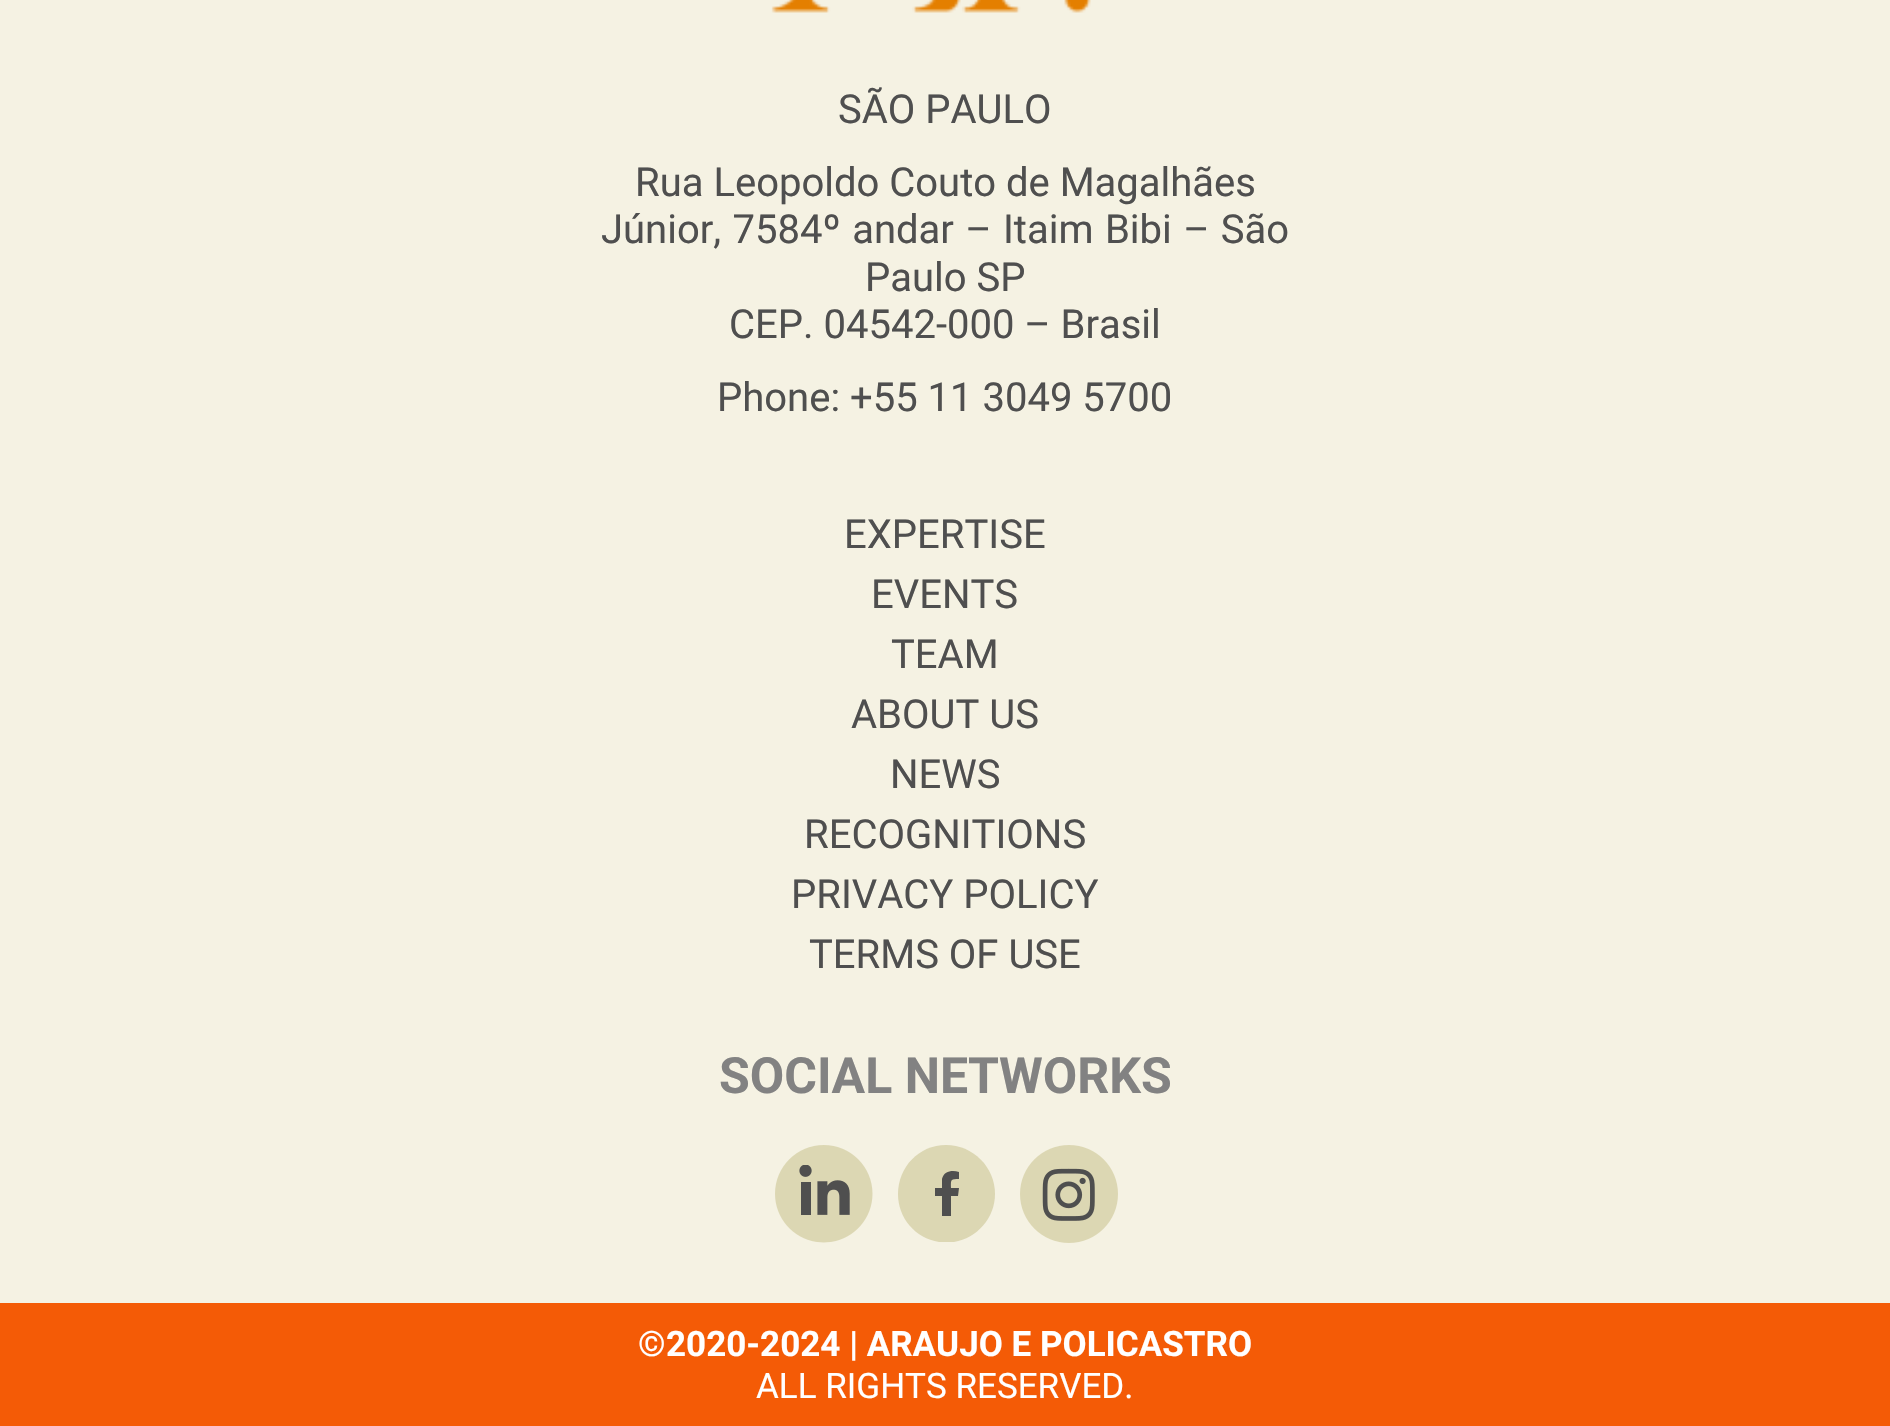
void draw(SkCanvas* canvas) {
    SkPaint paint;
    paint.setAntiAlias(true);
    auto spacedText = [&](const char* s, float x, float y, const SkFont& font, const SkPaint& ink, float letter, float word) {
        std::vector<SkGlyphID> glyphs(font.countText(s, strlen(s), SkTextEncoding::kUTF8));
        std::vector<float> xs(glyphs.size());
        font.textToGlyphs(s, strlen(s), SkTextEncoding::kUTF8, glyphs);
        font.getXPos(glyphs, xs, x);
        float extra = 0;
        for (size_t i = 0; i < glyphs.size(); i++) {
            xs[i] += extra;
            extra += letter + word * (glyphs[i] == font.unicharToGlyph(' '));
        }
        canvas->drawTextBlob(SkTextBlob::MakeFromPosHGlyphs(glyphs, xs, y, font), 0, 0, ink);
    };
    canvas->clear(0xFFF5F2E3);
    canvas->drawImageRect(SkImages::DeferredFromEncodedData(SkData::MakeFromFileName("img1.png")), SkRect::MakeXYWH(771, 0, 320, 13), SkSamplingOptions());
    SkFont font1(fontMgr->matchFamilyStyle("Roboto", SkFontStyle::Normal()), 40);
    font1.setSubpixel(true);
    paint.setColor(0xFF4F4F4F);
    canvas->drawString("SÃO PAULO", 838, 123, font1, paint);
    canvas->drawString("Rua Leopoldo Couto de Magalhães", 635, 196, font1, paint);
    spacedText("Júnior, 7584º andar – Itaim Bibi – São", 601, 243, font1, paint, 0, 1.5f);
    canvas->drawString("Paulo SP", 865, 291, font1, paint);
    canvas->drawString("CEP. 04542-000 – Brasil", 729, 338, font1, paint);
    canvas->drawString("Phone: +55 11 3049 5700", 717, 411, font1, paint);
    canvas->drawString("EXPERTISE", 844, 548, font1, paint);
    canvas->drawString("EVENTS", 871, 608, font1, paint);
    canvas->drawString("TEAM", 891, 668, font1, paint);
    canvas->drawString("ABOUT US", 851, 728, font1, paint);
    canvas->drawString("NEWS", 890, 788, font1, paint);
    canvas->drawString("RECOGNITIONS", 804, 848, font1, paint);
    canvas->drawString("PRIVACY POLICY", 791, 908, font1, paint);
    canvas->drawString("TERMS OF USE", 809, 968, font1, paint);
    SkFont font2(fontMgr->matchFamilyStyle("Roboto", SkFontStyle::Bold()), 50);
    font2.setSubpixel(true);
    paint.setColor(0xFF828282);
    canvas->drawString("SOCIAL NETWORKS", 719, 1093, font2, paint);
    canvas->drawImageRect(SkImages::DeferredFromEncodedData(SkData::MakeFromFileName("img2.png")), SkRect::MakeXYWH(775, 1145, 98, 98), SkSamplingOptions());
    paint.setColor(0xFFDCD7B3);
    canvas->drawPath(SkPathBuilder().moveTo(995, 1194).cubicTo(995, 1167, 973, 1145, 946, 1145).cubicTo(919, 1145, 898, 1167, 898, 1194).cubicTo(898, 1218, 915, 1238, 939, 1242).lineTo(946, 1242).lineTo(954, 1242).cubicTo(977, 1238, 995, 1218, 995, 1194).close().detach(), paint);
    paint.setColor(0xFF4F4F4F);
    canvas->drawPath(SkPathBuilder().moveTo(958, 1196).lineTo(959, 1188).lineTo(951, 1188).cubicTo(951, 1180, 950, 1179, 959, 1179).lineTo(959, 1172).cubicTo(952, 1170, 944, 1171, 942, 1179).lineTo(942, 1188).lineTo(935, 1188).lineTo(935, 1196).lineTo(942, 1196).lineTo(942, 1216).lineTo(951, 1216).lineTo(951, 1196).close().detach(), paint);
    canvas->drawImageRect(SkImages::DeferredFromEncodedData(SkData::MakeFromFileName("img3.png")), SkRect::MakeXYWH(1020, 1145, 98, 98), SkSamplingOptions());
    paint.setColor(0xFFF45B06);
    canvas->drawRect(SkRect::MakeXYWH(0, 1303, 1890, 123), paint);
    SkFont font3(fontMgr->matchFamilyStyle("Roboto", SkFontStyle::Normal()), 35);
    font3.setSubpixel(true);
    paint.setColor(0xFFFFFFFF);
    canvas->drawString("©", 638, 1356, font3, paint);
    SkFont font4(fontMgr->matchFamilyStyle("Roboto", SkFontStyle::Bold()), 35);
    font4.setSubpixel(true);
    canvas->drawString("2020-2024 | ARAUJO E POLICASTRO", 666, 1356, font4, paint);
    canvas->drawString("ALL RIGHTS RESERVED.", 756, 1398, font3, paint);
}
